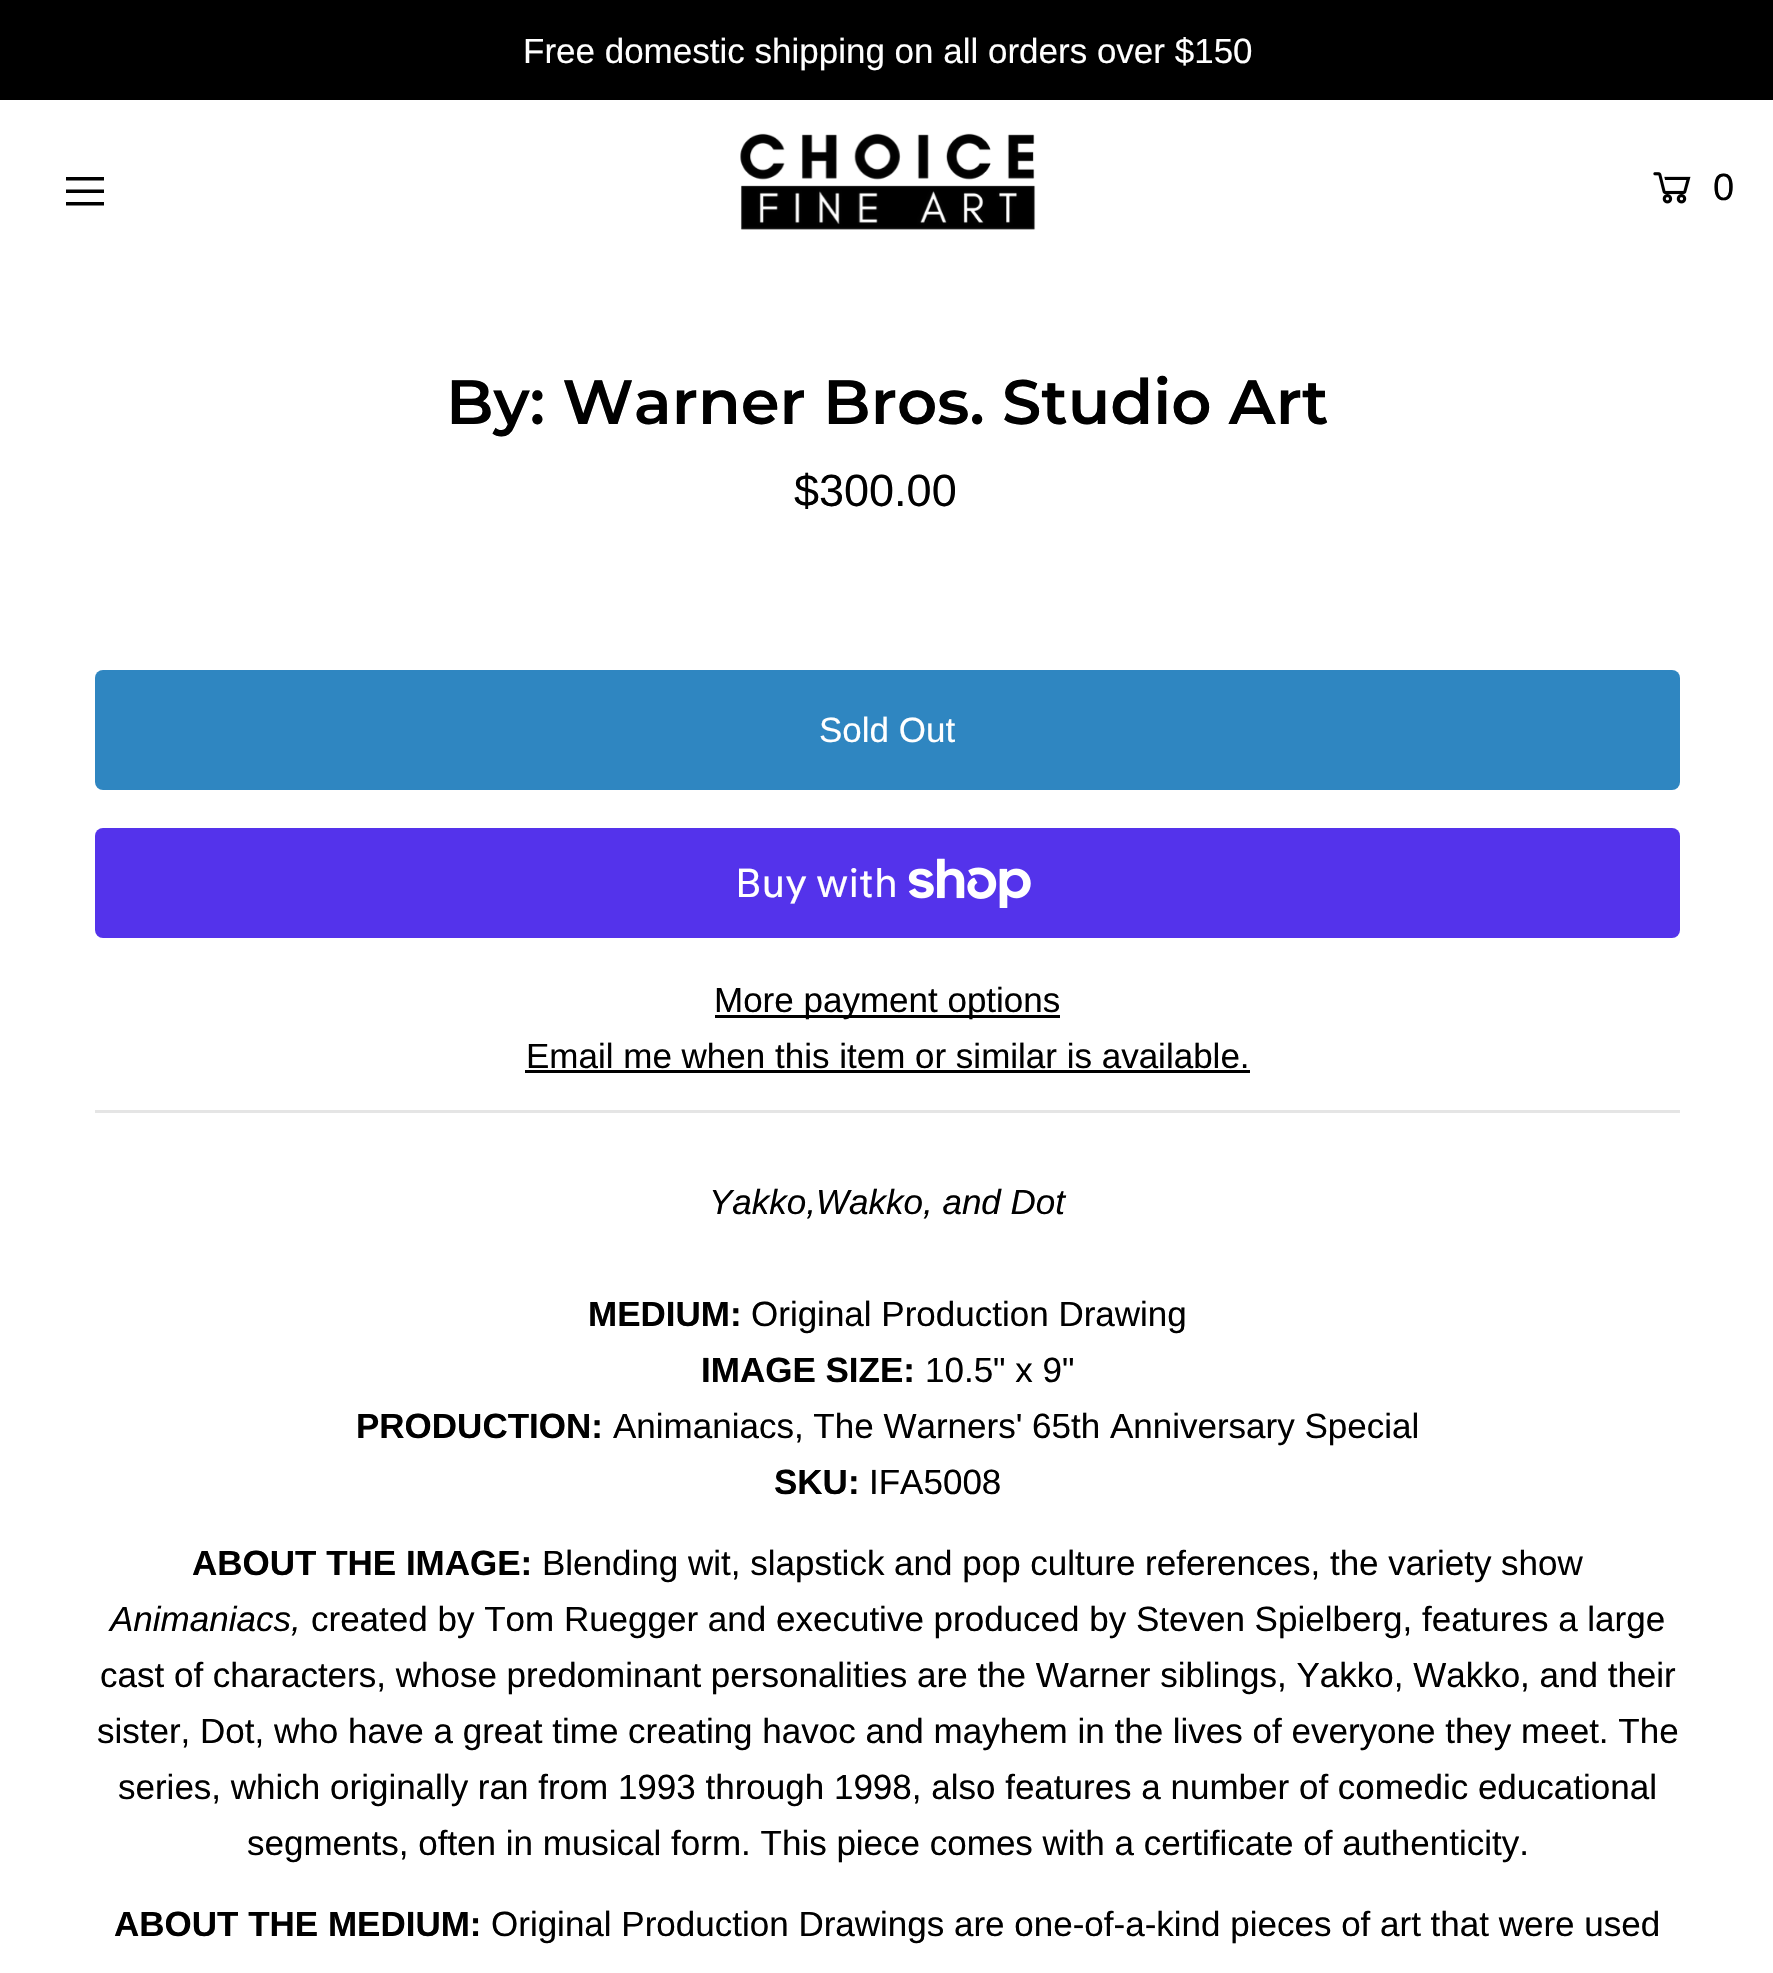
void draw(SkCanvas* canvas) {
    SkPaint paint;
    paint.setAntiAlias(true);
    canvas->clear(0xFFFFFFFF);
    paint.setColor(0xFF000000);
    canvas->drawRect(SkRect::MakeXYWH(0, 0, 1773, 100), paint);
    SkFont font1(fontMgr->matchFamilyStyle("Liberation Sans", SkFontStyle::Normal()), 35);
    font1.setSubpixel(true);
    paint.setColor(0xFFFFFFFF);
    canvas->drawString("Free domestic shipping on all orders over $150", 523, 63, font1, paint);
    paint.setColor(0xFF000000);
    canvas->drawPath(SkPathBuilder().moveTo(66, 177).lineTo(104, 177).lineTo(104, 180.5f).lineTo(66, 180.5f).close().moveTo(66, 189.5f).lineTo(104, 189.5f).lineTo(104, 193).lineTo(66, 193).close().moveTo(66, 202).lineTo(104, 202).lineTo(104, 205.5f).lineTo(66, 205.5f).close().detach(), paint);
    canvas->drawImageRect(SkImages::DeferredFromEncodedData(SkData::MakeFromFileName("img1.png")), SkRect::MakeXYWH(740, 133, 296, 97), SkSamplingOptions());
    canvas->drawImageRect(SkImages::DeferredFromEncodedData(SkData::MakeFromFileName("img2.png")), SkRect::MakeXYWH(1653, 172, 38, 32), SkSamplingOptions());
    SkFont font2(fontMgr->matchFamilyStyle("Liberation Sans", SkFontStyle::Normal()), 38);
    font2.setSubpixel(true);
    canvas->drawString("0", 1713, 200, font2, paint);
    paint.setColor(0xFFE5E5E5);
    canvas->drawRect(SkRect::MakeXYWH(95, 1110, 1585, 3), paint);
    SkFont font3(fontMgr->matchFamilyStyle("Montserrat", SkFontStyle(600, SkFontStyle::kNormal_Width, SkFontStyle::kUpright_Slant)), 62.5f);
    font3.setSubpixel(true);
    paint.setColor(0xFF000000);
    canvas->drawString("By: Warner Bros. Studio Art", 446, 424, font3, paint);
    SkFont font4(fontMgr->matchFamilyStyle("Liberation Sans", SkFontStyle::Normal()), 45);
    font4.setSubpixel(true);
    canvas->drawString("$300.00", 794, 506, font4, paint);
    paint.setColor(0xFF2F86C1);
    canvas->drawRoundRect(SkRect::MakeXYWH(95, 670, 1585, 120), 8, 8, paint);
    paint.setColor(0xFFFFFFFF);
    canvas->drawString("Sold Out", 819, 742, font1, paint);
    paint.setColor(0xFF5433EB);
    canvas->drawRoundRect(SkRect::MakeXYWH(95, 828, 1585, 110), 8, 8, paint);
    SkFont font5(fontMgr->matchFamilyStyle("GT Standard", SkFontStyle::Normal()), 40);
    font5.setSubpixel(true);
    paint.setColor(0xFFFFFFFF);
    canvas->drawString("Buy with", 735, 897, font5, paint);
    canvas->drawImageRect(SkImages::DeferredFromEncodedData(SkData::MakeFromFileName("img3.png")), SkRect::MakeXYWH(908, 858, 123, 50), SkSamplingOptions());
    paint.setColor(0xFF000000);
    canvas->drawRect(SkRect::MakeXYWH(715, 1015, 345, 3), paint);
    canvas->drawString("More payment options", 714, 1012, font1, paint);
    canvas->drawString("Email me when this item or similar is available.", 526, 1068, font1, paint);
    canvas->drawRect(SkRect::MakeXYWH(525, 1070, 725, 3), paint);
    SkFont font6(fontMgr->matchFamilyStyle("Liberation Sans", SkFontStyle::Italic()), 35);
    font6.setSubpixel(true);
    canvas->drawString("Yakko,Wakko, and Dot", 709, 1214, font6, paint);
    SkFont font7(fontMgr->matchFamilyStyle("Liberation Sans", SkFontStyle::Bold()), 35);
    font7.setSubpixel(true);
    canvas->drawString("MEDIUM:", 588, 1326, font7, paint);
    canvas->drawString("Original Production Drawing", 751, 1326, font1, paint);
    canvas->drawString("IMAGE SIZE:", 701, 1382, font7, paint);
    canvas->drawString("10.5\" x 9\"", 925, 1382, font1, paint);
    canvas->drawString("PRODUCTION:", 356, 1438, font7, paint);
    canvas->drawString("Animaniacs, The Warners' 65th Anniversary Special", 613, 1438, font1, paint);
    canvas->drawString("SKU:", 774, 1494, font7, paint);
    canvas->drawString("IFA5008", 869, 1494, font1, paint);
    canvas->drawString("ABOUT THE IMAGE:", 192, 1575, font7, paint);
    canvas->drawString("Blending wit, slapstick and pop culture references, the variety show", 542, 1575, font1, paint);
    canvas->drawString("Animaniacs,", 110, 1631, font6, paint);
    canvas->drawString("created by Tom Ruegger and executive produced by Steven Spielberg, features a large", 311, 1631, font1, paint);
    canvas->drawString("cast of characters, whose predominant personalities are the Warner siblings, Yakko, Wakko, and their", 100, 1687, font1, paint);
    canvas->drawString("sister, Dot, who have a great time creating havoc and mayhem in the lives of everyone they meet. The", 97, 1743, font1, paint);
    canvas->drawString("series, which originally ran from 1993 through 1998, also features a number of comedic educational", 118, 1799, font1, paint);
    canvas->drawString("segments, often in musical form. This piece comes with a certificate of authenticity.", 247, 1855, font1, paint);
    canvas->drawString("ABOUT THE MEDIUM:", 114, 1936, font7, paint);
    canvas->drawString("Original Production Drawings are one-of-a-kind pieces of art that were used", 491, 1936, font1, paint);
}
